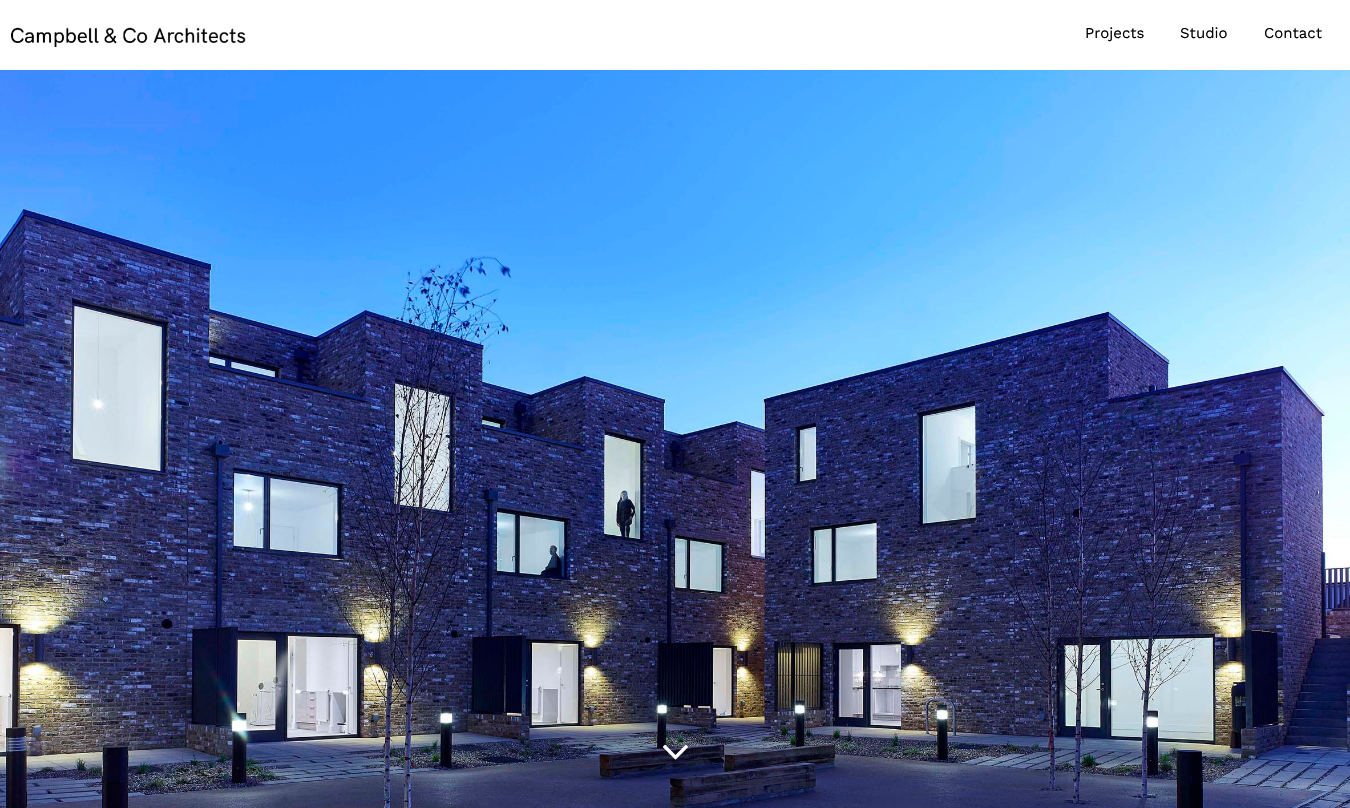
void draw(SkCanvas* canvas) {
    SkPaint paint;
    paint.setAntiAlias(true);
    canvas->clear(0xFFFFFFFF);
    canvas->drawImageRect(SkImages::DeferredFromEncodedData(SkData::MakeFromFileName("img1.png")), SkRect::MakeXYWH(11, 27, 235, 21), SkSamplingOptions());
    SkFont font1(fontMgr->matchFamilyStyle("Work Sans", SkFontStyle::Normal()), 15);
    font1.setSubpixel(true);
    paint.setColor(0xFF000000);
    canvas->drawString("Projects", 1085, 38, font1, paint);
    canvas->drawString("Studio", 1180, 38, font1, paint);
    canvas->drawString("Contact", 1264, 38, font1, paint);
    canvas->drawImageRect(SkImages::DeferredFromEncodedData(SkData::MakeFromFileName("img2.png")), SkRect::MakeXYWH(0, 70, 1350, 738), SkSamplingOptions());
    canvas->drawImageRect(SkImages::DeferredFromEncodedData(SkData::MakeFromFileName("img3.png")), SkRect::MakeXYWH(663, 744, 25, 16), SkSamplingOptions());
}
